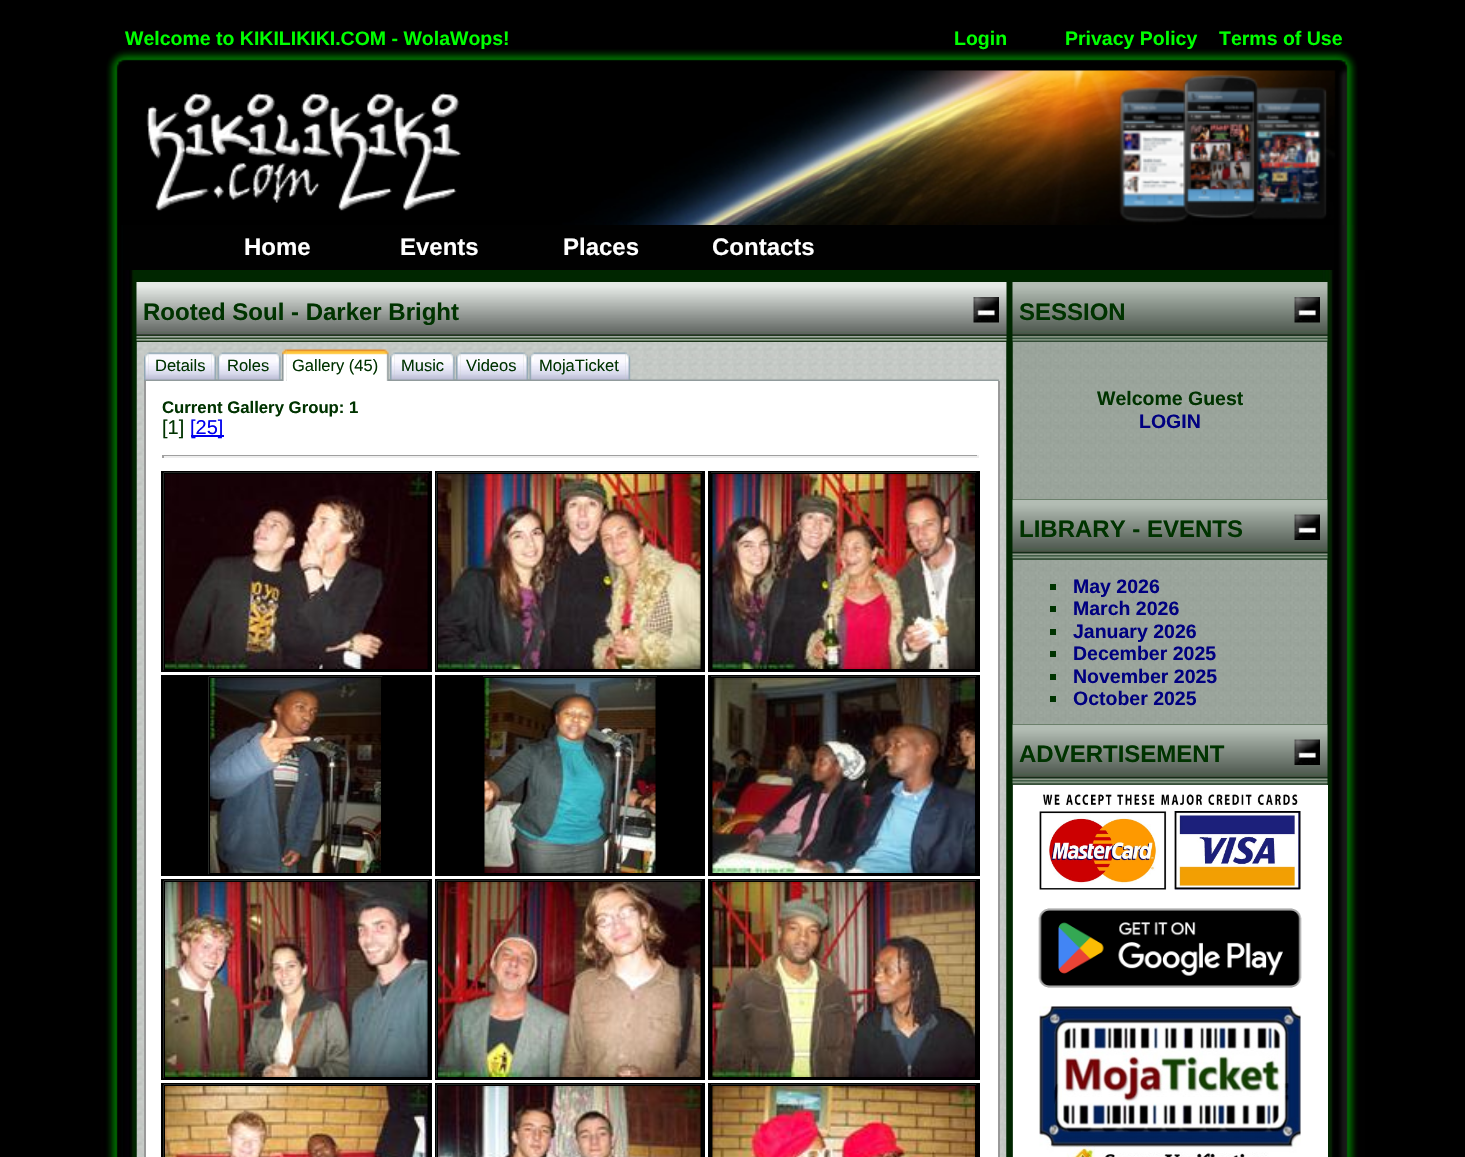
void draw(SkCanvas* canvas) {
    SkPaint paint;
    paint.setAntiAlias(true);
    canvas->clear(0xFF000000);
    canvas->drawImageRect(SkImages::DeferredFromEncodedData(SkData::MakeFromFileName("img1.png")), SkRect::MakeXYWH(106, 49, 1252, 176), SkSamplingOptions());
    SkFont font1(fontMgr->matchFamilyStyle("Liberation Sans", SkFontStyle::Bold()), 19.5f);
    font1.setSubpixel(true);
    paint.setColor(0xFF00FF00);
    canvas->drawString("Welcome to KIKILIKIKI.COM - WolaWops!", 125, 45, font1, paint);
    canvas->drawString("Login", 954, 45, font1, paint);
    canvas->drawString("Privacy Policy", 1065, 45, font1, paint);
    canvas->drawString("Terms of Use", 1219, 45, font1, paint);
    canvas->drawImageRect(SkImages::DeferredFromEncodedData(SkData::MakeFromFileName("img2.png")), SkRect::MakeXYWH(106, 225, 1252, 45), SkSamplingOptions());
    SkFont font2(fontMgr->matchFamilyStyle("Liberation Sans", SkFontStyle::Bold()), 24);
    font2.setSubpixel(true);
    paint.setColor(0xFFFFFFFF);
    canvas->drawString("Home", 244, 255, font2, paint);
    canvas->drawString("Events", 400, 255, font2, paint);
    canvas->drawString("Places", 563, 255, font2, paint);
    canvas->drawString("Contacts", 712, 255, font2, paint);
    canvas->drawImageRect(SkImages::DeferredFromEncodedData(SkData::MakeFromFileName("img3.png")), SkRect::MakeXYWH(99, 270, 1266, 887), SkSamplingOptions());
    canvas->drawImageRect(SkImages::DeferredFromEncodedData(SkData::MakeFromFileName("img4.png")), SkRect::MakeXYWH(136, 282, 871, 60), SkSamplingOptions());
    paint.setColor(0xFF003300);
    canvas->drawString("Rooted Soul - Darker Bright", 143, 320, font2, paint);
    canvas->drawImageRect(SkImages::DeferredFromEncodedData(SkData::MakeFromFileName("img5.png")), SkRect::MakeXYWH(973, 297, 26, 26), SkSamplingOptions());
    canvas->drawImageRect(SkImages::DeferredFromEncodedData(SkData::MakeFromFileName("img6.png")), SkRect::MakeXYWH(136, 342, 871, 815), SkSamplingOptions());
    canvas->drawImageRect(SkImages::DeferredFromEncodedData(SkData::MakeFromFileName("img7.png")), SkRect::MakeXYWH(144, 379, 855, 2), SkSamplingOptions());
    canvas->drawImageRect(SkImages::DeferredFromEncodedData(SkData::MakeFromFileName("img8.png")), SkRect::MakeXYWH(211, 352, 7, 28), SkSamplingOptions());
    canvas->drawImageRect(SkImages::DeferredFromEncodedData(SkData::MakeFromFileName("img9.png")), SkRect::MakeXYWH(144, 352, 5, 28), SkSamplingOptions());
    canvas->drawImageRect(SkImages::DeferredFromEncodedData(SkData::MakeFromFileName("img10.png")), SkRect::MakeXYWH(148, 352, 64, 28), SkSamplingOptions());
    SkFont font3(fontMgr->matchFamilyStyle("Liberation Sans", SkFontStyle::Normal()), 16.5f);
    font3.setSubpixel(true);
    canvas->drawString("Details", 155, 371, font3, paint);
    canvas->drawImageRect(SkImages::DeferredFromEncodedData(SkData::MakeFromFileName("img11.png")), SkRect::MakeXYWH(276, 352, 6, 28), SkSamplingOptions());
    canvas->drawImageRect(SkImages::DeferredFromEncodedData(SkData::MakeFromFileName("img12.png")), SkRect::MakeXYWH(217, 352, 5, 28), SkSamplingOptions());
    canvas->drawImageRect(SkImages::DeferredFromEncodedData(SkData::MakeFromFileName("img13.png")), SkRect::MakeXYWH(222, 352, 54, 28), SkSamplingOptions());
    canvas->drawString("Roles", 227, 371, font3, paint);
    canvas->drawImageRect(SkImages::DeferredFromEncodedData(SkData::MakeFromFileName("img14.png")), SkRect::MakeXYWH(384, 349, 6, 32), SkSamplingOptions());
    canvas->drawImageRect(SkImages::DeferredFromEncodedData(SkData::MakeFromFileName("img15.png")), SkRect::MakeXYWH(282, 349, 5, 32), SkSamplingOptions());
    canvas->drawImageRect(SkImages::DeferredFromEncodedData(SkData::MakeFromFileName("img16.png")), SkRect::MakeXYWH(286, 349, 98, 32), SkSamplingOptions());
    canvas->drawString("Gallery (45)", 292, 371, font3, paint);
    canvas->drawImageRect(SkImages::DeferredFromEncodedData(SkData::MakeFromFileName("img17.png")), SkRect::MakeXYWH(450, 352, 6, 28), SkSamplingOptions());
    canvas->drawImageRect(SkImages::DeferredFromEncodedData(SkData::MakeFromFileName("img18.png")), SkRect::MakeXYWH(390, 352, 5, 28), SkSamplingOptions());
    canvas->drawImageRect(SkImages::DeferredFromEncodedData(SkData::MakeFromFileName("img19.png")), SkRect::MakeXYWH(394, 352, 56, 28), SkSamplingOptions());
    canvas->drawString("Music", 401, 371, font3, paint);
    canvas->drawImageRect(SkImages::DeferredFromEncodedData(SkData::MakeFromFileName("img20.png")), SkRect::MakeXYWH(523, 352, 7, 28), SkSamplingOptions());
    canvas->drawImageRect(SkImages::DeferredFromEncodedData(SkData::MakeFromFileName("img21.png")), SkRect::MakeXYWH(456, 352, 5, 28), SkSamplingOptions());
    canvas->drawImageRect(SkImages::DeferredFromEncodedData(SkData::MakeFromFileName("img22.png")), SkRect::MakeXYWH(460, 352, 64, 28), SkSamplingOptions());
    canvas->drawString("Videos", 466, 371, font3, paint);
    canvas->drawImageRect(SkImages::DeferredFromEncodedData(SkData::MakeFromFileName("img23.png")), SkRect::MakeXYWH(625, 352, 7, 28), SkSamplingOptions());
    canvas->drawImageRect(SkImages::DeferredFromEncodedData(SkData::MakeFromFileName("img24.png")), SkRect::MakeXYWH(529, 352, 5, 28), SkSamplingOptions());
    canvas->drawImageRect(SkImages::DeferredFromEncodedData(SkData::MakeFromFileName("img25.png")), SkRect::MakeXYWH(534, 352, 92, 28), SkSamplingOptions());
    canvas->drawString("MojaTicket", 539, 371, font3, paint);
    paint.setColor(0xFFFFFFFF);
    canvas->drawRect(SkRect::MakeXYWH(146, 381, 852, 776), paint);
    paint.setColor(0xFF999999);
    canvas->drawRect(SkRect::MakeXYWH(998, 381, 2, 776), paint);
    canvas->drawRect(SkRect::MakeXYWH(144, 381, 2, 776), paint);
    SkFont font4(fontMgr->matchFamilyStyle("Liberation Sans", SkFontStyle::Bold()), 16.75f);
    font4.setSubpixel(true);
    paint.setColor(0xFF003300);
    canvas->drawString("Current Gallery Group: 1", 162, 413, font4, paint);
    SkFont font5(fontMgr->matchFamilyStyle("Liberation Sans", SkFontStyle::Normal()), 20);
    font5.setSubpixel(true);
    canvas->drawString("[1]", 162, 434, font5, paint);
    paint.setColor(0xFF0000EE);
    canvas->drawRect(SkRect::MakeXYWH(191, 435, 33, 2), paint);
    canvas->drawString("[25]", 190, 434, font5, paint);
    paint.setColor(0xFF9F9F9F);
    canvas->drawRect(SkRect::MakeXYWH(162, 455, 816, 1), paint);
    paint.setColor(0xFFEEEEEE);
    canvas->drawRect(SkRect::MakeXYWH(977, 455, 2, 3), paint);
    canvas->drawRect(SkRect::MakeXYWH(162, 456, 816, 2), paint);
    paint.setColor(0xFF9F9F9F);
    canvas->drawRect(SkRect::MakeXYWH(162, 455, 2, 3), paint);
    paint.setColor(0xFF000000);
    canvas->drawRect(SkRect::MakeXYWH(161, 471, 271, 201), paint);
    canvas->drawImageRect(SkImages::DeferredFromEncodedData(SkData::MakeFromFileName("img26.png")), SkRect::MakeXYWH(163, 472, 266, 199), SkSamplingOptions());
    paint.setStyle(SkPaint::kStroke_Style);
    paint.setStrokeWidth(2);
    canvas->drawRect(SkRect::MakeXYWH(165, 474, 263, 196), paint);
    canvas->drawImageRect(SkImages::DeferredFromEncodedData(SkData::MakeFromFileName("img27.png")), SkRect::MakeXYWH(165, 474, 263, 195), SkSamplingOptions());
    paint.setStyle(SkPaint::kFill_Style);
    canvas->drawRect(SkRect::MakeXYWH(435, 471, 270, 201), paint);
    canvas->drawImageRect(SkImages::DeferredFromEncodedData(SkData::MakeFromFileName("img28.png")), SkRect::MakeXYWH(436, 472, 266, 199), SkSamplingOptions());
    paint.setStyle(SkPaint::kStroke_Style);
    canvas->drawRect(SkRect::MakeXYWH(438, 474, 263, 196), paint);
    canvas->drawImageRect(SkImages::DeferredFromEncodedData(SkData::MakeFromFileName("img29.png")), SkRect::MakeXYWH(438, 474, 263, 195), SkSamplingOptions());
    paint.setStyle(SkPaint::kFill_Style);
    canvas->drawRect(SkRect::MakeXYWH(708, 471, 272, 201), paint);
    canvas->drawImageRect(SkImages::DeferredFromEncodedData(SkData::MakeFromFileName("img30.png")), SkRect::MakeXYWH(711, 472, 266, 1), SkSamplingOptions());
    canvas->drawImageRect(SkImages::DeferredFromEncodedData(SkData::MakeFromFileName("img31.png")), SkRect::MakeXYWH(712, 474, 263, 195), SkSamplingOptions());
    canvas->drawRect(SkRect::MakeXYWH(161, 675, 271, 201), paint);
    canvas->drawImageRect(SkImages::DeferredFromEncodedData(SkData::MakeFromFileName("img32.png")), SkRect::MakeXYWH(208, 676, 175, 199), SkSamplingOptions());
    paint.setStyle(SkPaint::kStroke_Style);
    canvas->drawRect(SkRect::MakeXYWH(210, 678, 172, 196), paint);
    canvas->drawImageRect(SkImages::DeferredFromEncodedData(SkData::MakeFromFileName("img33.png")), SkRect::MakeXYWH(210, 678, 171, 195), SkSamplingOptions());
    paint.setStyle(SkPaint::kFill_Style);
    canvas->drawRect(SkRect::MakeXYWH(435, 675, 270, 201), paint);
    canvas->drawImageRect(SkImages::DeferredFromEncodedData(SkData::MakeFromFileName("img34.png")), SkRect::MakeXYWH(483, 676, 174, 1), SkSamplingOptions());
    canvas->drawImageRect(SkImages::DeferredFromEncodedData(SkData::MakeFromFileName("img35.png")), SkRect::MakeXYWH(484, 678, 172, 195), SkSamplingOptions());
    canvas->drawRect(SkRect::MakeXYWH(708, 675, 272, 201), paint);
    canvas->drawImageRect(SkImages::DeferredFromEncodedData(SkData::MakeFromFileName("img30.png")), SkRect::MakeXYWH(711, 676, 266, 1), SkSamplingOptions());
    canvas->drawImageRect(SkImages::DeferredFromEncodedData(SkData::MakeFromFileName("img36.png")), SkRect::MakeXYWH(712, 678, 263, 195), SkSamplingOptions());
    canvas->drawRect(SkRect::MakeXYWH(161, 879, 271, 201), paint);
    canvas->drawImageRect(SkImages::DeferredFromEncodedData(SkData::MakeFromFileName("img37.png")), SkRect::MakeXYWH(163, 880, 266, 199), SkSamplingOptions());
    paint.setStyle(SkPaint::kStroke_Style);
    canvas->drawRect(SkRect::MakeXYWH(165, 882, 263, 196), paint);
    canvas->drawImageRect(SkImages::DeferredFromEncodedData(SkData::MakeFromFileName("img38.png")), SkRect::MakeXYWH(165, 882, 263, 195), SkSamplingOptions());
    paint.setStyle(SkPaint::kFill_Style);
    canvas->drawRect(SkRect::MakeXYWH(435, 879, 270, 201), paint);
    canvas->drawImageRect(SkImages::DeferredFromEncodedData(SkData::MakeFromFileName("img39.png")), SkRect::MakeXYWH(436, 880, 266, 199), SkSamplingOptions());
    paint.setStyle(SkPaint::kStroke_Style);
    canvas->drawRect(SkRect::MakeXYWH(438, 882, 263, 196), paint);
    canvas->drawImageRect(SkImages::DeferredFromEncodedData(SkData::MakeFromFileName("img40.png")), SkRect::MakeXYWH(438, 882, 263, 195), SkSamplingOptions());
    paint.setStyle(SkPaint::kFill_Style);
    canvas->drawRect(SkRect::MakeXYWH(708, 879, 272, 201), paint);
    canvas->drawImageRect(SkImages::DeferredFromEncodedData(SkData::MakeFromFileName("img30.png")), SkRect::MakeXYWH(711, 880, 266, 1), SkSamplingOptions());
    canvas->drawImageRect(SkImages::DeferredFromEncodedData(SkData::MakeFromFileName("img41.png")), SkRect::MakeXYWH(712, 882, 263, 195), SkSamplingOptions());
    canvas->drawRect(SkRect::MakeXYWH(161, 1083, 271, 74), paint);
    canvas->drawImageRect(SkImages::DeferredFromEncodedData(SkData::MakeFromFileName("img42.png")), SkRect::MakeXYWH(163, 1084, 266, 73), SkSamplingOptions());
    paint.setStyle(SkPaint::kStroke_Style);
    canvas->drawRect(SkRect::MakeXYWH(165, 1086, 263, 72), paint);
    canvas->drawImageRect(SkImages::DeferredFromEncodedData(SkData::MakeFromFileName("img43.png")), SkRect::MakeXYWH(165, 1086, 263, 71), SkSamplingOptions());
    paint.setStyle(SkPaint::kFill_Style);
    canvas->drawRect(SkRect::MakeXYWH(435, 1083, 270, 74), paint);
    canvas->drawImageRect(SkImages::DeferredFromEncodedData(SkData::MakeFromFileName("img44.png")), SkRect::MakeXYWH(436, 1084, 266, 73), SkSamplingOptions());
    paint.setStyle(SkPaint::kStroke_Style);
    canvas->drawRect(SkRect::MakeXYWH(438, 1086, 263, 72), paint);
    canvas->drawImageRect(SkImages::DeferredFromEncodedData(SkData::MakeFromFileName("img45.png")), SkRect::MakeXYWH(438, 1086, 263, 71), SkSamplingOptions());
    paint.setStyle(SkPaint::kFill_Style);
    canvas->drawRect(SkRect::MakeXYWH(708, 1083, 272, 74), paint);
    canvas->drawImageRect(SkImages::DeferredFromEncodedData(SkData::MakeFromFileName("img30.png")), SkRect::MakeXYWH(711, 1084, 266, 1), SkSamplingOptions());
    canvas->drawImageRect(SkImages::DeferredFromEncodedData(SkData::MakeFromFileName("img46.png")), SkRect::MakeXYWH(712, 1086, 263, 71), SkSamplingOptions());
    canvas->drawImageRect(SkImages::DeferredFromEncodedData(SkData::MakeFromFileName("img47.png")), SkRect::MakeXYWH(1012, 282, 316, 60), SkSamplingOptions());
    paint.setColor(0xFF003300);
    canvas->drawString("SESSION", 1019, 320, font2, paint);
    canvas->drawImageRect(SkImages::DeferredFromEncodedData(SkData::MakeFromFileName("img48.png")), SkRect::MakeXYWH(1294, 297, 26, 26), SkSamplingOptions());
    canvas->drawImageRect(SkImages::DeferredFromEncodedData(SkData::MakeFromFileName("img50.png")), SkRect::MakeXYWH(1012, 499, 316, 61), SkSamplingOptions());
    canvas->drawImageRect(SkImages::DeferredFromEncodedData(SkData::MakeFromFileName("img49.png")), SkRect::MakeXYWH(1012, 342, 316, 158), SkSamplingOptions());
    canvas->drawString("Welcome Guest", 1097, 405, font1, paint);
    paint.setColor(0xFF000080);
    canvas->drawString("LOGIN", 1139, 428, font1, paint);
    paint.setColor(0xFF003300);
    canvas->drawString("LIBRARY - EVENTS", 1019, 537, font2, paint);
    canvas->drawImageRect(SkImages::DeferredFromEncodedData(SkData::MakeFromFileName("img51.png")), SkRect::MakeXYWH(1294, 514, 26, 26), SkSamplingOptions());
    canvas->drawImageRect(SkImages::DeferredFromEncodedData(SkData::MakeFromFileName("img50.png")), SkRect::MakeXYWH(1012, 724, 316, 61), SkSamplingOptions());
    canvas->drawImageRect(SkImages::DeferredFromEncodedData(SkData::MakeFromFileName("img52.png")), SkRect::MakeXYWH(1012, 559, 316, 166), SkSamplingOptions());
    canvas->drawRect(SkRect::MakeXYWH(1050, 584, 6, 6), paint);
    paint.setColor(0xFF000080);
    canvas->drawString("May 2026", 1073, 593, font1, paint);
    paint.setColor(0xFF003300);
    canvas->drawRect(SkRect::MakeXYWH(1050, 606, 6, 6), paint);
    paint.setColor(0xFF000080);
    canvas->drawString("March 2026", 1073, 615, font1, paint);
    paint.setColor(0xFF003300);
    canvas->drawRect(SkRect::MakeXYWH(1050, 629, 6, 6), paint);
    paint.setColor(0xFF000080);
    canvas->drawString("January 2026", 1073, 638, font1, paint);
    paint.setColor(0xFF003300);
    canvas->drawRect(SkRect::MakeXYWH(1050, 651, 6, 6), paint);
    paint.setColor(0xFF000080);
    canvas->drawString("December 2025", 1073, 660, font1, paint);
    paint.setColor(0xFF003300);
    canvas->drawRect(SkRect::MakeXYWH(1050, 674, 6, 6), paint);
    paint.setColor(0xFF000080);
    canvas->drawString("November 2025", 1073, 683, font1, paint);
    paint.setColor(0xFF003300);
    canvas->drawRect(SkRect::MakeXYWH(1050, 696, 6, 6), paint);
    paint.setColor(0xFF000080);
    canvas->drawString("October 2025", 1073, 705, font1, paint);
    paint.setColor(0xFF003300);
    canvas->drawString("ADVERTISEMENT", 1019, 762, font2, paint);
    canvas->drawImageRect(SkImages::DeferredFromEncodedData(SkData::MakeFromFileName("img51.png")), SkRect::MakeXYWH(1294, 739, 26, 26), SkSamplingOptions());
    canvas->drawImageRect(SkImages::DeferredFromEncodedData(SkData::MakeFromFileName("img53.png")), SkRect::MakeXYWH(1012, 784, 316, 373), SkSamplingOptions());
    paint.setColor(0xFFFFFFFF);
    canvas->drawRect(SkRect::MakeXYWH(1013, 785, 315, 372), paint);
    canvas->drawImageRect(SkImages::DeferredFromEncodedData(SkData::MakeFromFileName("img54.png")), SkRect::MakeXYWH(1039, 794, 262, 96), SkSamplingOptions());
    canvas->drawImageRect(SkImages::DeferredFromEncodedData(SkData::MakeFromFileName("img55.png")), SkRect::MakeXYWH(1038, 908, 264, 80), SkSamplingOptions());
    canvas->drawImageRect(SkImages::DeferredFromEncodedData(SkData::MakeFromFileName("img56.png")), SkRect::MakeXYWH(1039, 1006, 262, 151), SkSamplingOptions());
}
